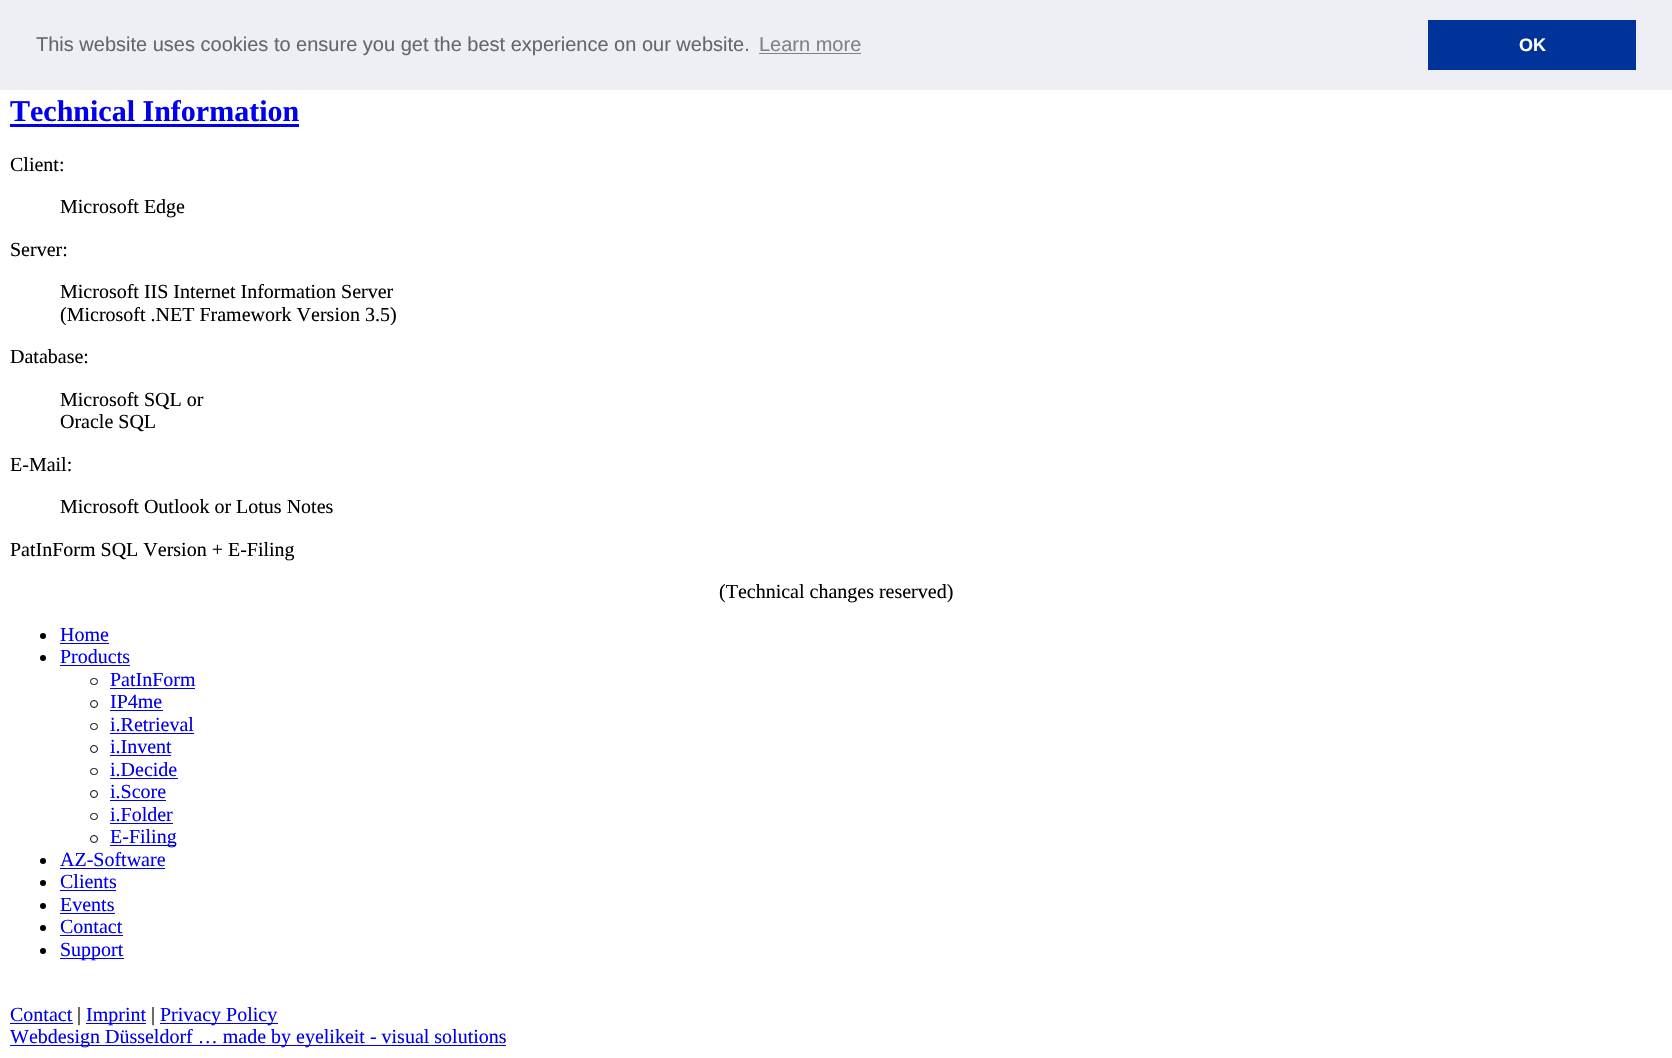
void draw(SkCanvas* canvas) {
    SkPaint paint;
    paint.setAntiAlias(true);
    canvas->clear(0xFFFFFFFF);
    paint.setColor(0xFFEDEFF5);
    canvas->drawRect(SkRect::MakeXYWH(0, 0, 1672, 90), paint);
    SkFont font1(fontMgr->matchFamilyStyle("Liberation Sans", SkFontStyle::Normal()), 20);
    font1.setSubpixel(true);
    paint.setColor(0xFF666666);
    canvas->drawString("This website uses cookies to ensure you get the best experience on our website.", 36, 51, font1, paint);
    paint.setColor(0xFF818183);
    canvas->drawString("Learn more", 759, 51, font1, paint);
    canvas->drawRect(SkRect::MakeXYWH(759, 53, 102, 1), paint);
    paint.setColor(0xFF003399);
    canvas->drawRect(SkRect::MakeXYWH(1428, 20, 208, 50), paint);
    SkFont font2(fontMgr->matchFamilyStyle("Liberation Sans", SkFontStyle::Bold()), 18);
    font2.setSubpixel(true);
    paint.setColor(0xFFFFFFFF);
    canvas->drawString("OK", 1519, 51, font2, paint);
    SkFont font3(fontMgr->matchFamilyStyle("Liberation Serif", SkFontStyle::Bold()), 30);
    font3.setSubpixel(true);
    paint.setColor(0xFF0000EE);
    canvas->drawString("Technical Information", 10, 121, font3, paint);
    canvas->drawRect(SkRect::MakeXYWH(10, 124, 289, 3), paint);
    SkFont font4(fontMgr->matchFamilyStyle("Liberation Serif", SkFontStyle::Normal()), 20);
    font4.setSubpixel(true);
    paint.setColor(0xFF000000);
    canvas->drawString("Client:", 10, 171, font4, paint);
    canvas->drawString("Microsoft Edge", 60, 213, font4, paint);
    canvas->drawString("Server:", 10, 256, font4, paint);
    canvas->drawString("Microsoft IIS Internet Information Server", 60, 298, font4, paint);
    canvas->drawString("(Microsoft .NET Framework Version 3.5)", 60, 321, font4, paint);
    canvas->drawString("Database:", 10, 363, font4, paint);
    canvas->drawString("Microsoft SQL or", 60, 406, font4, paint);
    canvas->drawString("Oracle SQL", 60, 428, font4, paint);
    canvas->drawString("E-Mail:", 10, 471, font4, paint);
    canvas->drawString("Microsoft Outlook or Lotus Notes", 60, 513, font4, paint);
    canvas->drawString("PatInForm SQL Version + E-Filing", 10, 556, font4, paint);
    canvas->drawString("(Technical changes reserved)", 719, 598, font4, paint);
    canvas->drawCircle(43, 636, 3, paint);
    paint.setColor(0xFF0000EE);
    canvas->drawString("Home", 60, 641, font4, paint);
    canvas->drawRect(SkRect::MakeXYWH(60, 643, 49, 1), paint);
    paint.setColor(0xFF000000);
    canvas->drawCircle(43, 658, 3, paint);
    paint.setColor(0xFF0000EE);
    canvas->drawString("Products", 60, 663, font4, paint);
    canvas->drawRect(SkRect::MakeXYWH(60, 665, 70, 1), paint);
    paint.setStyle(SkPaint::kStroke_Style);
    paint.setStrokeWidth(1);
    paint.setColor(0xFF000000);
    canvas->drawRoundRect(SkRect::MakeXYWH(90.5f, 678.5f, 7, 6), 3, 3, paint);
    paint.setStyle(SkPaint::kFill_Style);
    paint.setColor(0xFF0000EE);
    canvas->drawString("PatInForm", 110, 686, font4, paint);
    canvas->drawRect(SkRect::MakeXYWH(110, 688, 85, 1), paint);
    paint.setStyle(SkPaint::kStroke_Style);
    paint.setColor(0xFF000000);
    canvas->drawCircle(94, 704, 3.5f, paint);
    paint.setStyle(SkPaint::kFill_Style);
    paint.setColor(0xFF0000EE);
    canvas->drawString("IP4me", 110, 708, font4, paint);
    canvas->drawRect(SkRect::MakeXYWH(110, 710, 53, 1), paint);
    paint.setStyle(SkPaint::kStroke_Style);
    paint.setColor(0xFF000000);
    canvas->drawRoundRect(SkRect::MakeXYWH(90.5f, 723.5f, 7, 6), 3, 3, paint);
    paint.setStyle(SkPaint::kFill_Style);
    paint.setColor(0xFF0000EE);
    canvas->drawString("i.Retrieval", 110, 731, font4, paint);
    canvas->drawRect(SkRect::MakeXYWH(110, 733, 84, 1), paint);
    paint.setStyle(SkPaint::kStroke_Style);
    paint.setColor(0xFF000000);
    canvas->drawCircle(94, 749, 3.5f, paint);
    paint.setStyle(SkPaint::kFill_Style);
    paint.setColor(0xFF0000EE);
    canvas->drawString("i.Invent", 110, 753, font4, paint);
    canvas->drawRect(SkRect::MakeXYWH(110, 755, 61, 1), paint);
    paint.setStyle(SkPaint::kStroke_Style);
    paint.setColor(0xFF000000);
    canvas->drawRoundRect(SkRect::MakeXYWH(90.5f, 768.5f, 7, 6), 3, 3, paint);
    paint.setStyle(SkPaint::kFill_Style);
    paint.setColor(0xFF0000EE);
    canvas->drawString("i.Decide", 110, 776, font4, paint);
    canvas->drawRect(SkRect::MakeXYWH(110, 778, 68, 1), paint);
    paint.setStyle(SkPaint::kStroke_Style);
    paint.setColor(0xFF000000);
    canvas->drawCircle(94, 794, 3.5f, paint);
    paint.setStyle(SkPaint::kFill_Style);
    paint.setColor(0xFF0000EE);
    canvas->drawString("i.Score", 110, 798, font4, paint);
    canvas->drawRect(SkRect::MakeXYWH(110, 800, 56, 1), paint);
    paint.setStyle(SkPaint::kStroke_Style);
    paint.setColor(0xFF000000);
    canvas->drawRoundRect(SkRect::MakeXYWH(90.5f, 813.5f, 7, 6), 3, 3, paint);
    paint.setStyle(SkPaint::kFill_Style);
    paint.setColor(0xFF0000EE);
    canvas->drawString("i.Folder", 110, 821, font4, paint);
    canvas->drawRect(SkRect::MakeXYWH(110, 823, 63, 1), paint);
    paint.setStyle(SkPaint::kStroke_Style);
    paint.setColor(0xFF000000);
    canvas->drawCircle(94, 839, 3.5f, paint);
    paint.setStyle(SkPaint::kFill_Style);
    paint.setColor(0xFF0000EE);
    canvas->drawRect(SkRect::MakeXYWH(110, 845, 66, 1), paint);
    canvas->drawString("E-Filing", 110, 843, font4, paint);
    paint.setColor(0xFF000000);
    canvas->drawCircle(43, 861, 3, paint);
    paint.setColor(0xFF0000EE);
    canvas->drawString("AZ-Software", 60, 866, font4, paint);
    canvas->drawRect(SkRect::MakeXYWH(60, 868, 105, 1), paint);
    paint.setColor(0xFF000000);
    canvas->drawCircle(43, 883, 3, paint);
    paint.setColor(0xFF0000EE);
    canvas->drawString("Clients", 60, 888, font4, paint);
    canvas->drawRect(SkRect::MakeXYWH(60, 890, 56, 1), paint);
    paint.setColor(0xFF000000);
    canvas->drawCircle(43, 906, 3, paint);
    paint.setColor(0xFF0000EE);
    canvas->drawString("Events", 60, 911, font4, paint);
    canvas->drawRect(SkRect::MakeXYWH(60, 913, 55, 1), paint);
    paint.setColor(0xFF000000);
    canvas->drawCircle(43, 928, 3, paint);
    paint.setColor(0xFF0000EE);
    canvas->drawString("Contact", 60, 933, font4, paint);
    canvas->drawRect(SkRect::MakeXYWH(60, 935, 63, 1), paint);
    paint.setColor(0xFF000000);
    canvas->drawCircle(43, 951, 3, paint);
    paint.setColor(0xFF0000EE);
    canvas->drawRect(SkRect::MakeXYWH(60, 958, 64, 1), paint);
    canvas->drawString("Support", 60, 956, font4, paint);
    canvas->drawString("Contact", 10, 1021, font4, paint);
    canvas->drawRect(SkRect::MakeXYWH(10, 1023, 63, 1), paint);
    paint.setColor(0xFF000000);
    canvas->drawString("|", 77, 1021, font4, paint);
    paint.setColor(0xFF0000EE);
    canvas->drawRect(SkRect::MakeXYWH(86, 1023, 60, 1), paint);
    canvas->drawString("Imprint", 86, 1021, font4, paint);
    paint.setColor(0xFF000000);
    canvas->drawString("|", 151, 1021, font4, paint);
    paint.setColor(0xFF0000EE);
    canvas->drawRect(SkRect::MakeXYWH(160, 1023, 118, 1), paint);
    canvas->drawString("Privacy Policy", 160, 1021, font4, paint);
    canvas->drawRect(SkRect::MakeXYWH(10, 1045, 496, 1), paint);
    canvas->drawString("Webdesign Düsseldorf … made by eyelikeit - visual solutions", 10, 1043, font4, paint);
}
